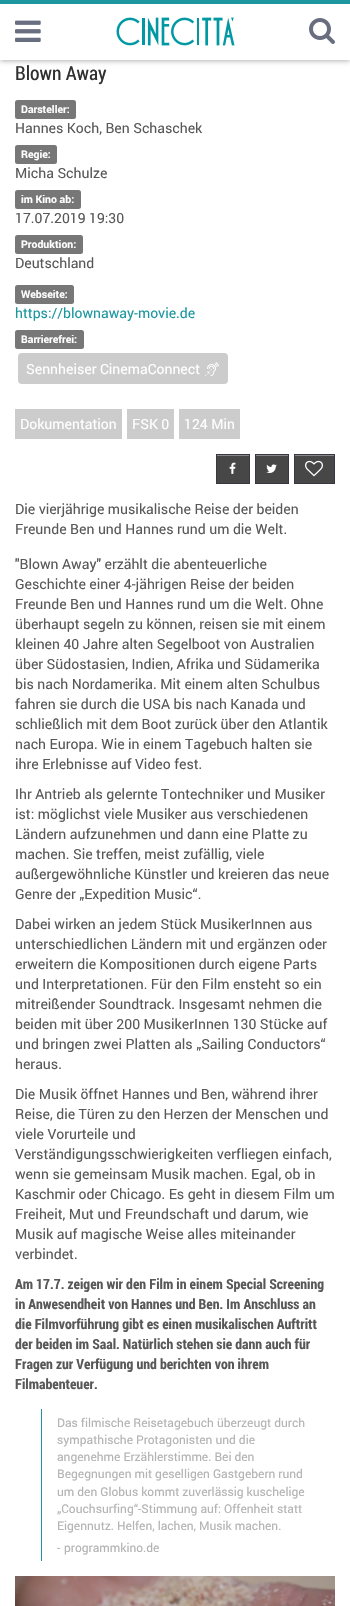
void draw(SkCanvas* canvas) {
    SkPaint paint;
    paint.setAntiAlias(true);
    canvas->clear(0xFFFFFFFF);
    paint.setColor(0x4D000000);
    paint.setMaskFilter(SkMaskFilter::MakeBlur(kNormal_SkBlurStyle, 2.5f));
    canvas->drawRect(SkRect::MakeXYWH(0, 1, 350, 60), paint);
    paint.setMaskFilter(nullptr);
    paint.setColor(0xFFFFFFFF);
    canvas->drawRect(SkRect::MakeXYWH(0, 4, 350, 56), paint);
    paint.setColor(0xFF1D979F);
    canvas->drawRect(SkRect::MakeXYWH(0, 0, 350, 4), paint);
    canvas->drawImageRect(SkImages::DeferredFromEncodedData(SkData::MakeFromFileName("img1.png")), SkRect::MakeXYWH(15, 20, 26, 22), SkSamplingOptions());
    canvas->drawImageRect(SkImages::DeferredFromEncodedData(SkData::MakeFromFileName("img2.png")), SkRect::MakeXYWH(116, 17, 119, 29), SkSamplingOptions());
    canvas->drawImageRect(SkImages::DeferredFromEncodedData(SkData::MakeFromFileName("img3.png")), SkRect::MakeXYWH(309, 18, 26, 26), SkSamplingOptions());
    SkFont font1(fontMgr->matchFamilyStyle("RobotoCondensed", SkFontStyle::Normal()), 19.5f);
    font1.setSubpixel(true);
    paint.setColor(0xFF303030);
    canvas->drawString("Blown Away", 15, 80, font1, paint);
    paint.setColor(0xFF777777);
    canvas->drawRoundRect(SkRect::MakeXYWH(15, 100, 61, 19), 2.5f, 2.5f, paint);
    SkFont font2(fontMgr->matchFamilyStyle("Roboto", SkFontStyle::Bold()), 10.5f);
    font2.setSubpixel(true);
    paint.setColor(0xFFFFFFFF);
    canvas->drawString("Darsteller:", 21, 113, font2, paint);
    SkFont font3(fontMgr->matchFamilyStyle("Roboto", SkFontStyle::Normal()), 14);
    font3.setSubpixel(true);
    paint.setColor(0xFF585858);
    canvas->drawString("Hannes Koch, Ben Schaschek", 15, 133, font3, paint);
    paint.setColor(0xFF777777);
    canvas->drawRoundRect(SkRect::MakeXYWH(15, 145, 42, 19), 2.5f, 2.5f, paint);
    paint.setColor(0xFFFFFFFF);
    canvas->drawString("Regie:", 21, 158, font2, paint);
    paint.setColor(0xFF585858);
    canvas->drawString("Micha Schulze", 15, 178, font3, paint);
    paint.setColor(0xFF777777);
    canvas->drawRoundRect(SkRect::MakeXYWH(15, 190, 66, 19), 2.5f, 2.5f, paint);
    paint.setColor(0xFFFFFFFF);
    canvas->drawString("im Kino ab:", 21, 203, font2, paint);
    paint.setColor(0xFF585858);
    canvas->drawString("17.07.2019 19:30", 15, 223, font3, paint);
    paint.setColor(0xFF777777);
    canvas->drawRoundRect(SkRect::MakeXYWH(15, 235, 68, 19), 2.5f, 2.5f, paint);
    paint.setColor(0xFFFFFFFF);
    canvas->drawString("Produktion:", 21, 248, font2, paint);
    paint.setColor(0xFF585858);
    canvas->drawString("Deutschland", 15, 268, font3, paint);
    paint.setColor(0xFF777777);
    canvas->drawRoundRect(SkRect::MakeXYWH(15, 285, 59, 19), 2.5f, 2.5f, paint);
    paint.setColor(0xFFFFFFFF);
    canvas->drawString("Webseite:", 21, 298, font2, paint);
    paint.setColor(0xFF1D979F);
    canvas->drawString("https://blownaway-movie.de", 15, 318, font3, paint);
    paint.setColor(0xFF777777);
    canvas->drawRoundRect(SkRect::MakeXYWH(15, 330, 69, 19), 2.5f, 2.5f, paint);
    paint.setColor(0xFFFFFFFF);
    canvas->drawString("Barrierefrei:", 21, 343, font2, paint);
    paint.setColor(0xFFCCCCCC);
    canvas->drawRoundRect(SkRect::MakeXYWH(18, 353, 210, 31), 4, 4, paint);
    paint.setColor(0xFFFFFFFF);
    canvas->drawString("Sennheiser CinemaConnect", 26, 374, font3, paint);
    canvas->drawImageRect(SkImages::DeferredFromEncodedData(SkData::MakeFromFileName("img4.png")), SkRect::MakeXYWH(205, 362, 14, 14), SkSamplingOptions());
    paint.setColor(0xFFCCCCCC);
    canvas->drawRect(SkRect::MakeXYWH(15, 409, 107, 30), paint);
    paint.setColor(0xFFFFFFFF);
    canvas->drawString("Dokumentation", 20, 429, font3, paint);
    paint.setColor(0xFFCCCCCC);
    canvas->drawRect(SkRect::MakeXYWH(127, 409, 47, 30), paint);
    paint.setColor(0xFFFFFFFF);
    canvas->drawString("FSK 0", 132, 429, font3, paint);
    paint.setColor(0xFFCCCCCC);
    canvas->drawRect(SkRect::MakeXYWH(179, 409, 61, 30), paint);
    paint.setColor(0xFFFFFFFF);
    canvas->drawString("124 Min", 184, 429, font3, paint);
    paint.setColor(0xFF474747);
    canvas->drawRect(SkRect::MakeXYWH(217, 456, 32, 27), paint);
    paint.setColor(0xFF878787);
    canvas->drawRect(SkRect::MakeXYWH(217, 455, 32, 1), paint);
    paint.setStyle(SkPaint::kStroke_Style);
    paint.setStrokeWidth(1);
    paint.setColor(0xFF363942);
    canvas->drawRect(SkRect::MakeXYWH(216.5f, 454.5f, 33, 29), paint);
    canvas->drawImageRect(SkImages::DeferredFromEncodedData(SkData::MakeFromFileName("img5.png")), SkRect::MakeXYWH(229, 462, 7, 12), SkSamplingOptions());
    paint.setStyle(SkPaint::kFill_Style);
    paint.setColor(0xFF474747);
    canvas->drawRect(SkRect::MakeXYWH(256, 456, 32, 27), paint);
    paint.setColor(0xFF878787);
    canvas->drawRect(SkRect::MakeXYWH(256, 455, 32, 1), paint);
    paint.setStyle(SkPaint::kStroke_Style);
    paint.setColor(0xFF363942);
    canvas->drawRect(SkRect::MakeXYWH(255.5f, 454.5f, 33, 29), paint);
    canvas->drawImageRect(SkImages::DeferredFromEncodedData(SkData::MakeFromFileName("img6.png")), SkRect::MakeXYWH(266, 464, 11, 9), SkSamplingOptions());
    paint.setStyle(SkPaint::kFill_Style);
    paint.setColor(0xFF474747);
    canvas->drawRect(SkRect::MakeXYWH(295, 456, 39, 27), paint);
    paint.setColor(0xFF878787);
    canvas->drawRect(SkRect::MakeXYWH(295, 455, 39, 1), paint);
    paint.setStyle(SkPaint::kStroke_Style);
    paint.setColor(0xFF363942);
    canvas->drawRect(SkRect::MakeXYWH(294.5f, 454.5f, 40, 29), paint);
    canvas->drawImageRect(SkImages::DeferredFromEncodedData(SkData::MakeFromFileName("img7.png")), SkRect::MakeXYWH(305, 460, 18, 17), SkSamplingOptions());
    paint.setStyle(SkPaint::kFill_Style);
    paint.setColor(0xFF585858);
    canvas->drawString("Die vierjährige musikalische Reise der beiden", 15, 514, font3, paint);
    canvas->drawString("Freunde Ben und Hannes rund um die Welt.", 15, 534, font3, paint);
    canvas->drawString("\"Blown Away\" erzählt die abenteuerliche", 15, 569, font3, paint);
    canvas->drawString("Geschichte einer 4-jährigen Reise der beiden", 15, 589, font3, paint);
    canvas->drawString("Freunde Ben und Hannes rund um die Welt. Ohne", 15, 609, font3, paint);
    canvas->drawString("überhaupt segeln zu können, reisen sie mit einem", 15, 629, font3, paint);
    canvas->drawString("kleinen 40 Jahre alten Segelboot von Australien", 15, 649, font3, paint);
    canvas->drawString("über Südostasien, Indien, Afrika und Südamerika", 15, 669, font3, paint);
    canvas->drawString("bis nach Nordamerika. Mit einem alten Schulbus", 15, 689, font3, paint);
    canvas->drawString("fahren sie durch die USA bis nach Kanada und", 15, 709, font3, paint);
    canvas->drawString("schließlich mit dem Boot zurück über den Atlantik", 15, 729, font3, paint);
    canvas->drawString("nach Europa. Wie in einem Tagebuch halten sie", 15, 749, font3, paint);
    canvas->drawString("ihre Erlebnisse auf Video fest.", 15, 769, font3, paint);
    canvas->drawString("Ihr Antrieb als gelernte Tontechniker und Musiker", 15, 799, font3, paint);
    canvas->drawString("ist: möglichst viele Musiker aus verschiedenen", 15, 819, font3, paint);
    canvas->drawString("Ländern aufzunehmen und dann eine Platte zu", 15, 839, font3, paint);
    canvas->drawString("machen. Sie treffen, meist zufällig, viele", 15, 859, font3, paint);
    canvas->drawString("außergewöhnliche Künstler und kreieren das neue", 15, 879, font3, paint);
    canvas->drawString("Genre der „Expedition Music“.", 15, 899, font3, paint);
    canvas->drawString("Dabei wirken an jedem Stück MusikerInnen aus", 15, 929, font3, paint);
    canvas->drawString("unterschiedlichen Ländern mit und ergänzen oder", 15, 949, font3, paint);
    canvas->drawString("erweitern die Kompositionen durch eigene Parts", 15, 969, font3, paint);
    canvas->drawString("und Interpretationen. Für den Film ensteht so ein", 15, 989, font3, paint);
    canvas->drawString("mitreißender Soundtrack. Insgesamt nehmen die", 15, 1009, font3, paint);
    canvas->drawString("beiden mit über 200 MusikerInnen 130 Stücke auf", 15, 1029, font3, paint);
    canvas->drawString("und bringen zwei Platten als „Sailing Conductors“", 15, 1049, font3, paint);
    canvas->drawString("heraus.", 15, 1069, font3, paint);
    canvas->drawString("Die Musik öffnet Hannes und Ben, während ihrer", 15, 1099, font3, paint);
    canvas->drawString("Reise, die Türen zu den Herzen der Menschen und", 15, 1119, font3, paint);
    canvas->drawString("viele Vorurteile und", 15, 1139, font3, paint);
    canvas->drawString("Verständigungsschwierigkeiten verfliegen einfach,", 15, 1159, font3, paint);
    canvas->drawString("wenn sie gemeinsam Musik machen. Egal, ob in", 15, 1179, font3, paint);
    canvas->drawString("Kaschmir oder Chicago. Es geht in diesem Film um", 15, 1199, font3, paint);
    canvas->drawString("Freiheit, Mut und Freundschaft und darum, wie", 15, 1219, font3, paint);
    canvas->drawString("Musik auf magische Weise alles miteinander", 15, 1239, font3, paint);
    canvas->drawString("verbindet.", 15, 1259, font3, paint);
    SkFont font4(fontMgr->matchFamilyStyle("RobotoCondensed", SkFontStyle::Bold()), 14);
    font4.setSubpixel(true);
    canvas->drawString("Am 17.7. zeigen wir den Film in einem Special Screening", 15, 1289, font4, paint);
    canvas->drawString("in Anwesendheit von Hannes und Ben. Im Anschluss an", 15, 1309, font4, paint);
    canvas->drawString("die Filmvorführung gibt es einen musikalischen Auftritt", 15, 1329, font4, paint);
    canvas->drawString("der beiden im Saal. Natürlich stehen sie dann auch für", 15, 1349, font4, paint);
    canvas->drawString("Fragen zur Verfügung und berichten von ihrem", 15, 1369, font4, paint);
    canvas->drawString("Filmabenteuer.", 15, 1389, font4, paint);
    paint.setColor(0xFF1D979F);
    canvas->drawRect(SkRect::MakeXYWH(41, 1409, 1, 152), paint);
    SkFont font5(fontMgr->matchFamilyStyle("Roboto", SkFontStyle::Normal()), 12);
    font5.setSubpixel(true);
    paint.setColor(0xFFB3B3B3);
    canvas->drawString("Das filmische Reisetagebuch überzeugt durch", 57, 1427, font5, paint);
    canvas->drawString("sympathische Protagonisten und die", 57, 1444, font5, paint);
    canvas->drawString("angenehme Erzählerstimme. Bei den", 57, 1461, font5, paint);
    canvas->drawString("Begegnungen mit geselligen Gastgebern rund", 57, 1478, font5, paint);
    canvas->drawString("um den Globus kommt zuverlässig kuschelige", 57, 1496, font5, paint);
    canvas->drawString("„Couchsurfing“-Stimmung auf: Offenheit statt", 57, 1513, font5, paint);
    canvas->drawString("Eigennutz. Helfen, lachen, Musik machen.", 57, 1530, font5, paint);
    canvas->drawString("-", 57, 1552, font5, paint);
    canvas->drawString("programmkino.de", 64, 1552, font5, paint);
    canvas->drawImageRect(SkImages::DeferredFromEncodedData(SkData::MakeFromFileName("img8.png")), SkRect::MakeXYWH(15, 1576, 320, 30), SkSamplingOptions());
}
